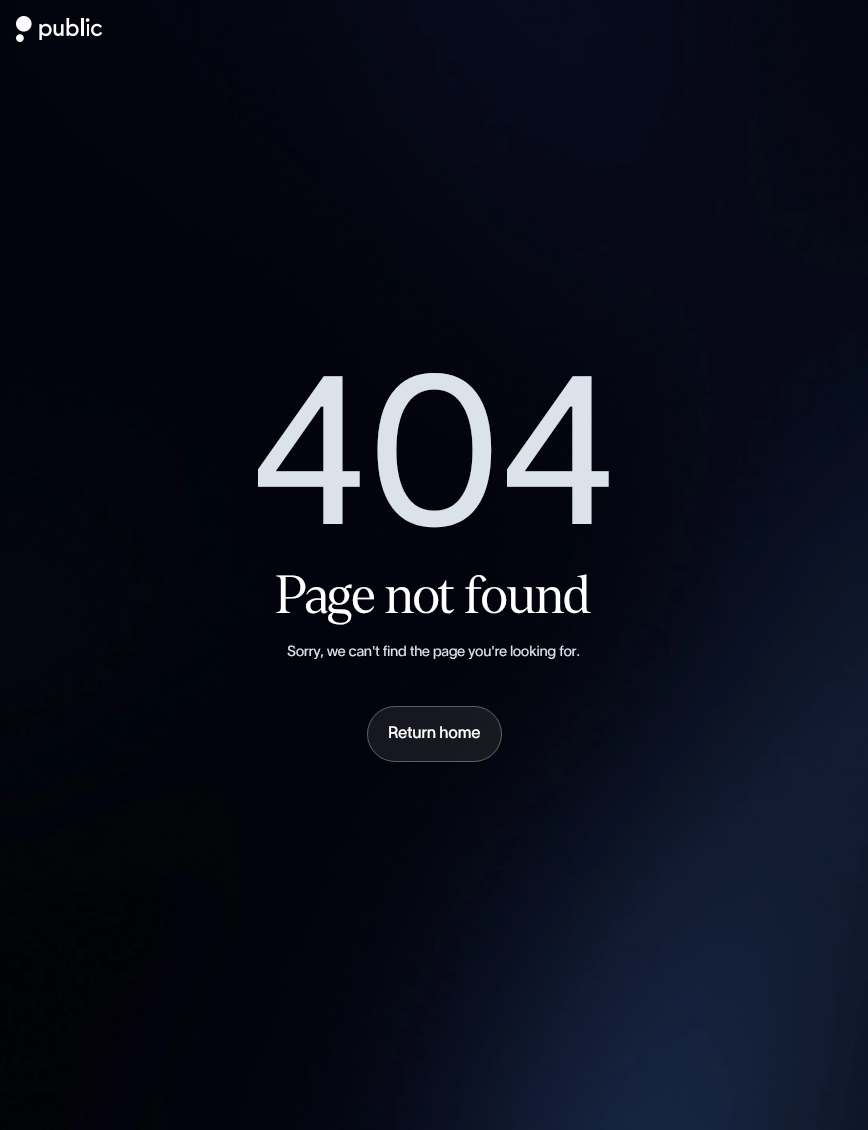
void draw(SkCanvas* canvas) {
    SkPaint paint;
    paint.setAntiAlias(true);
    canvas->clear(0xFFFFFFFF);
    canvas->drawImageRect(SkImages::DeferredFromEncodedData(SkData::MakeFromFileName("img2.png")), SkRect::MakeXYWH(0, 0, 868, 1130), SkSamplingOptions());
    canvas->drawImageRect(SkImages::DeferredFromEncodedData(SkData::MakeFromFileName("img1.png")), SkRect::MakeXYWH(16, 16, 87, 26), SkSamplingOptions());
    SkFont font1(fontMgr->matchFamilyStyle("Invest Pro", SkFontStyle::Normal()), 200);
    font1.setSubpixel(true);
    paint.setColor(0xFFDCE2EA);
    canvas->drawString("404", 251, 524, font1, paint);
    SkFont font2(fontMgr->matchFamilyStyle("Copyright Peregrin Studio", SkFontStyle(300, SkFontStyle::kNormal_Width, SkFontStyle::kUpright_Slant)), 52);
    font2.setSubpixel(true);
    paint.setColor(0xFFFFFFFF);
    canvas->drawString("Page not found", 276, 613, font2, paint);
    SkFont font3(fontMgr->matchFamilyStyle("Invest Pro", SkFontStyle::Normal()), 14);
    font3.setSubpixel(true);
    paint.setColor(0xFFDCE2EA);
    canvas->drawString("Sorry, we can't find the page you're looking for.", 287, 656, font3, paint);
    paint.setColor(0x14FFFFFF);
    canvas->drawRoundRect(SkRect::MakeXYWH(367, 706, 135, 56), 28, 28, paint);
    paint.setStyle(SkPaint::kStroke_Style);
    paint.setStrokeWidth(1);
    paint.setColor(0x4DFFFFFF);
    canvas->drawRoundRect(SkRect::MakeXYWH(367.5f, 706.5f, 134, 55), 27.5f, 27.5f, paint);
    SkFont font4(fontMgr->matchFamilyStyle("Invest Pro", SkFontStyle(500, SkFontStyle::kNormal_Width, SkFontStyle::kUpright_Slant)), 16);
    font4.setSubpixel(true);
    paint.setStyle(SkPaint::kFill_Style);
    paint.setColor(0xFFFFFFFF);
    canvas->drawString("Return home", 388, 738, font4, paint);
}
